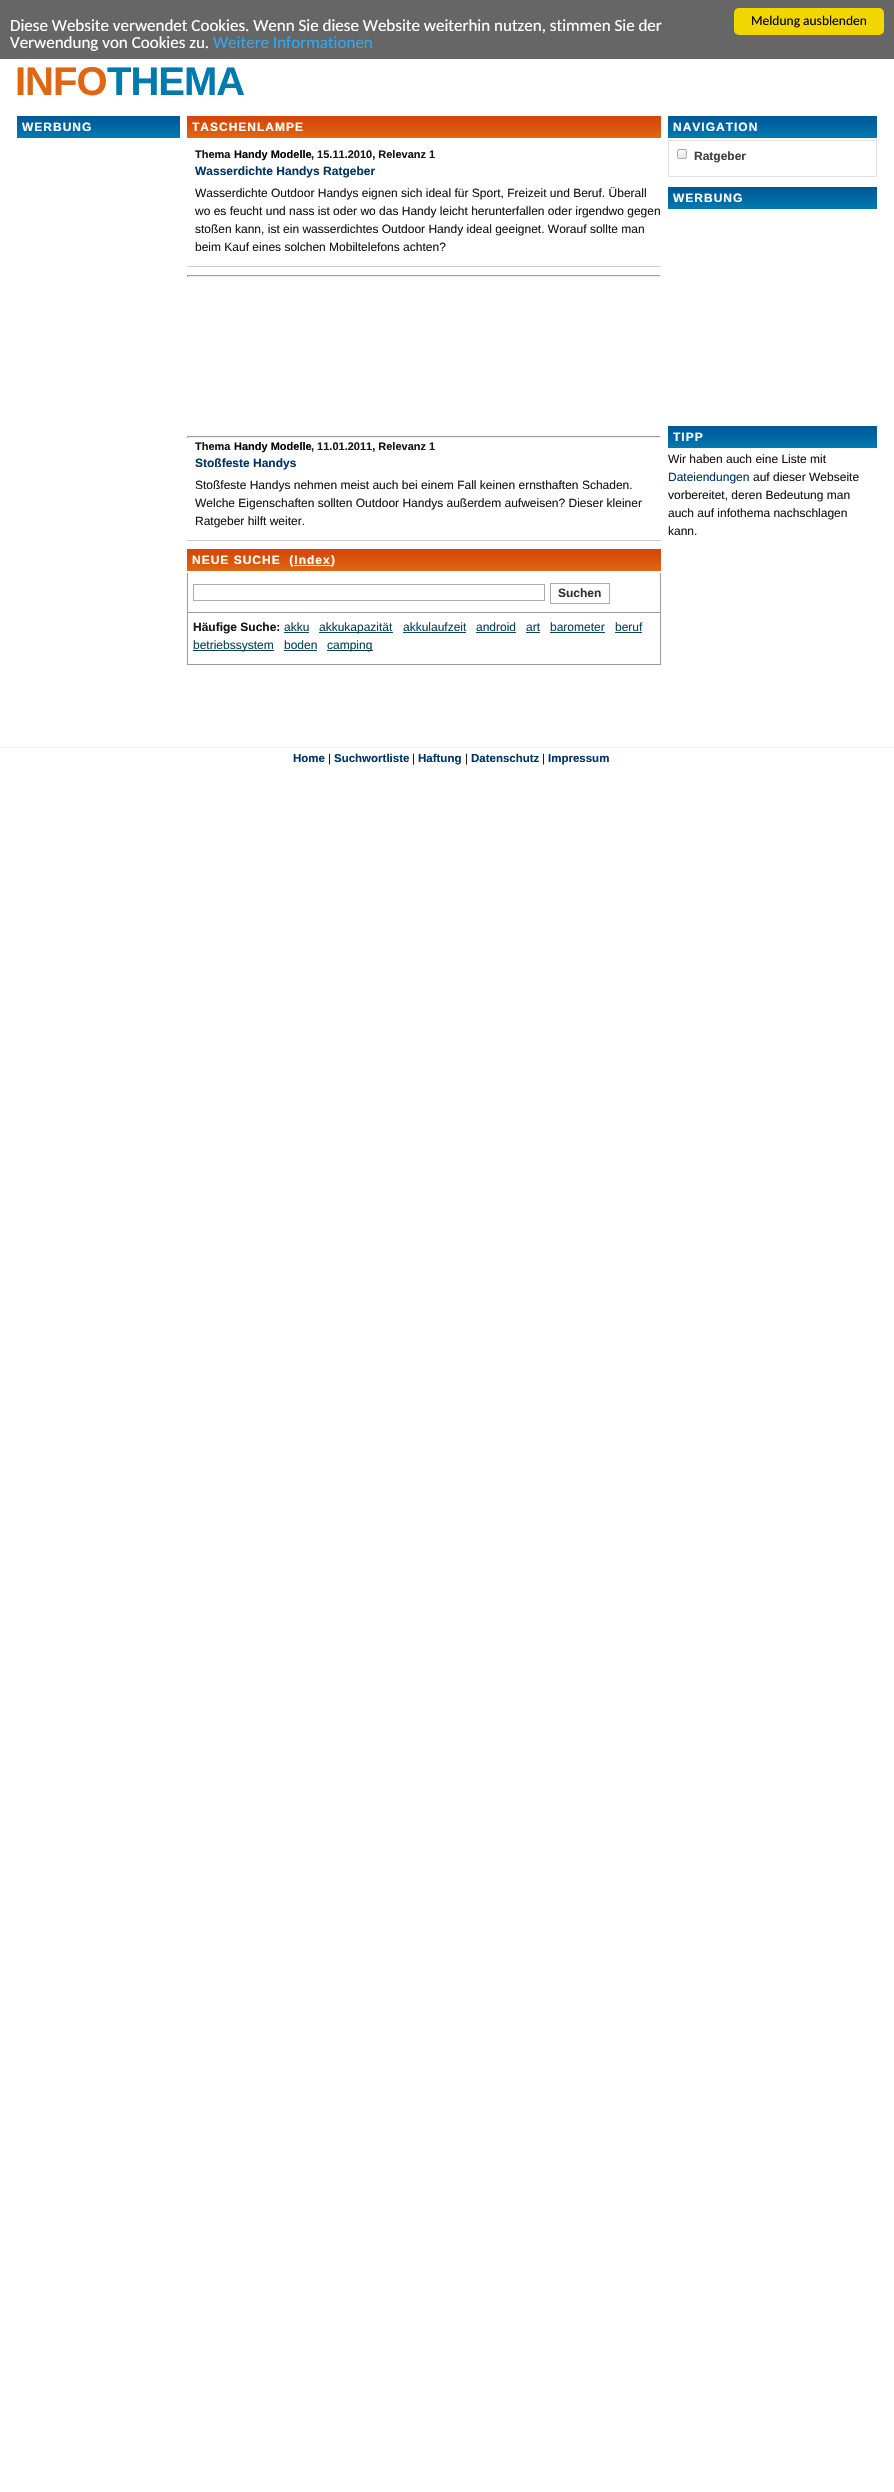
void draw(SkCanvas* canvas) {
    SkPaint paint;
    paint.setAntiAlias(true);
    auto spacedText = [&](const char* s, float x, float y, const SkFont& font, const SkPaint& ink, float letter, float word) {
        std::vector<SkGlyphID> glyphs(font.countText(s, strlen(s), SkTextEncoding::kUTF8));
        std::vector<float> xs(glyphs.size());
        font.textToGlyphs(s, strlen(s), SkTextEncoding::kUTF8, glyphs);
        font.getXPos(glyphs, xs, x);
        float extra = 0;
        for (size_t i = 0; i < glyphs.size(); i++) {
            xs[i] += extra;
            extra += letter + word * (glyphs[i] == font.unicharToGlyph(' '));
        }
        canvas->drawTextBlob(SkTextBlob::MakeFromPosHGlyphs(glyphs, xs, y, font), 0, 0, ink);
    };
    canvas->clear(0xFFFFFFFF);
    paint.setColor(0xFF666666);
    canvas->drawRect(SkRect::MakeXYWH(0, 0, 894, 59), paint);
    SkFont font1(fontMgr->matchFamilyStyle("Carlito", SkFontStyle::Normal()), 17);
    font1.setSubpixel(true);
    paint.setColor(0xFFFFFFFF);
    canvas->drawString("Diese Website verwendet Cookies. Wenn Sie diese Website weiterhin nutzen, stimmen Sie der", 10, 31, font1, paint);
    canvas->drawString("Verwendung von Cookies zu.", 10, 48, font1, paint);
    paint.setColor(0xFF31A8F0);
    canvas->drawString("Weitere Informationen", 213, 48, font1, paint);
    paint.setColor(0xFFF1D600);
    canvas->drawRoundRect(SkRect::MakeXYWH(734, 8, 150, 27), 5, 5, paint);
    SkFont font2(fontMgr->matchFamilyStyle("Carlito", SkFontStyle::Normal()), 13.5f);
    font2.setSubpixel(true);
    paint.setColor(0xFF000000);
    canvas->drawString("Meldung ausblenden", 751, 25, font2, paint);
    SkFont font3(fontMgr->matchFamilyStyle("Liberation Sans", SkFontStyle::Bold()), 40);
    font3.setSubpixel(true);
    paint.setColor(0xFFDF6613);
    spacedText("INFO", 15, 95, font3, paint, -1, 0);
    paint.setColor(0xFF0079AE);
    spacedText("THEMA", 107, 95, font3, paint, -1, 0);
    canvas->drawImageRect(SkImages::DeferredFromEncodedData(SkData::MakeFromFileName("img1.png")), SkRect::MakeXYWH(17, 116, 163, 22), SkSamplingOptions());
    SkFont font4(fontMgr->matchFamilyStyle("Liberation Sans", SkFontStyle::Bold()), 12);
    font4.setSubpixel(true);
    paint.setColor(0xFFFFFFFF);
    spacedText("WERBUNG", 22, 131, font4, paint, 1, 0);
    canvas->drawImageRect(SkImages::DeferredFromEncodedData(SkData::MakeFromFileName("img2.png")), SkRect::MakeXYWH(187, 116, 474, 22), SkSamplingOptions());
    spacedText("TASCHENLAMPE", 192, 131, font4, paint, 1, 0);
    paint.setColor(0xFFCCCCCC);
    canvas->drawRect(SkRect::MakeXYWH(187, 266, 474, 1), paint);
    SkFont font5(fontMgr->matchFamilyStyle("Liberation Sans", SkFontStyle::Bold()), 11);
    font5.setSubpixel(true);
    paint.setColor(0xFF151515);
    canvas->drawString("Thema", 195, 158, font5, paint);
    paint.setColor(0xFF000000);
    canvas->drawString("Handy Modelle", 234, 158, font5, paint);
    paint.setColor(0xFF151515);
    canvas->drawString(", 15.11.2010, Relevanz 1", 311, 158, font5, paint);
    paint.setColor(0xFF003366);
    canvas->drawString("Wasserdichte Handys Ratgeber", 195, 175, font4, paint);
    SkFont font6(fontMgr->matchFamilyStyle("Liberation Sans", SkFontStyle::Normal()), 12);
    font6.setSubpixel(true);
    paint.setColor(0xFF151515);
    canvas->drawString("Wasserdichte Outdoor Handys eignen sich ideal für Sport, Freizeit und Beruf. Überall", 195, 197, font6, paint);
    canvas->drawString("wo es feucht und nass ist oder wo das Handy leicht herunterfallen oder irgendwo gegen", 195, 215, font6, paint);
    canvas->drawString("stoßen kann, ist ein wasserdichtes Outdoor Handy ideal geeignet. Worauf sollte man", 195, 233, font6, paint);
    canvas->drawString("beim Kauf eines solchen Mobiltelefons achten?", 195, 251, font6, paint);
    paint.setColor(0xFF9F9F9F);
    canvas->drawRect(SkRect::MakeXYWH(187, 275, 474, 1), paint);
    paint.setColor(0xFFEEEEEE);
    canvas->drawRect(SkRect::MakeXYWH(660, 275, 1, 2), paint);
    canvas->drawRect(SkRect::MakeXYWH(187, 276, 474, 1), paint);
    paint.setColor(0xFF9F9F9F);
    canvas->drawRect(SkRect::MakeXYWH(187, 275, 1, 2), paint);
    canvas->drawRect(SkRect::MakeXYWH(187, 436, 474, 1), paint);
    paint.setColor(0xFFEEEEEE);
    canvas->drawRect(SkRect::MakeXYWH(660, 436, 1, 2), paint);
    canvas->drawRect(SkRect::MakeXYWH(187, 437, 474, 1), paint);
    paint.setColor(0xFF9F9F9F);
    canvas->drawRect(SkRect::MakeXYWH(187, 436, 1, 2), paint);
    paint.setColor(0xFFCCCCCC);
    canvas->drawRect(SkRect::MakeXYWH(187, 540, 474, 1), paint);
    paint.setColor(0xFF151515);
    canvas->drawString("Thema", 195, 450, font5, paint);
    paint.setColor(0xFF000000);
    canvas->drawString("Handy Modelle", 234, 450, font5, paint);
    paint.setColor(0xFF151515);
    canvas->drawString(", 11.01.2011, Relevanz 1", 311, 450, font5, paint);
    paint.setColor(0xFF003366);
    canvas->drawString("Stoßfeste Handys", 195, 467, font4, paint);
    paint.setColor(0xFF151515);
    canvas->drawString("Stoßfeste Handys nehmen meist auch bei einem Fall keinen ernsthaften Schaden.", 195, 489, font6, paint);
    canvas->drawString("Welche Eigenschaften sollten Outdoor Handys außerdem aufweisen? Dieser kleiner", 195, 507, font6, paint);
    canvas->drawString("Ratgeber hilft weiter.", 195, 525, font6, paint);
    canvas->drawImageRect(SkImages::DeferredFromEncodedData(SkData::MakeFromFileName("img2.png")), SkRect::MakeXYWH(187, 549, 474, 22), SkSamplingOptions());
    paint.setColor(0xFFFFFFFF);
    spacedText("NEUE SUCHE  (Index", 192, 564, font4, paint, 1, 0);
    canvas->drawRect(SkRect::MakeXYWH(294, 565, 37, 1), paint);
    spacedText(")", 331, 564, font4, paint, 1, 0);
    paint.setColor(0xFF999999);
    canvas->drawRect(SkRect::MakeXYWH(187, 664, 474, 1), paint);
    canvas->drawRect(SkRect::MakeXYWH(660, 573, 1, 91), paint);
    canvas->drawRect(SkRect::MakeXYWH(187, 612, 474, 1), paint);
    canvas->drawRect(SkRect::MakeXYWH(187, 573, 1, 91), paint);
    paint.setStyle(SkPaint::kStroke_Style);
    paint.setStrokeWidth(1);
    paint.setColor(0xFFAAAAAA);
    canvas->drawRect(SkRect::MakeXYWH(193.5f, 584.5f, 351, 16), paint);
    canvas->drawRect(SkRect::MakeXYWH(550.5f, 583.5f, 59, 20), paint);
    paint.setStyle(SkPaint::kFill_Style);
    paint.setColor(0xFF333333);
    canvas->drawString("Suchen", 558, 597, font4, paint);
    paint.setColor(0xFF151515);
    canvas->drawString("Häufige Suche:", 193, 631, font4, paint);
    paint.setColor(0xFF0A4455);
    canvas->drawString("akku", 284, 631, font6, paint);
    canvas->drawRect(SkRect::MakeXYWH(284, 632, 25, 1), paint);
    canvas->drawRect(SkRect::MakeXYWH(319, 632, 74, 1), paint);
    canvas->drawString("akkukapazität", 319, 631, font6, paint);
    canvas->drawString("akkulaufzeit", 403, 631, font6, paint);
    canvas->drawRect(SkRect::MakeXYWH(403, 632, 63, 1), paint);
    canvas->drawString("android", 476, 631, font6, paint);
    canvas->drawRect(SkRect::MakeXYWH(476, 632, 40, 1), paint);
    canvas->drawString("art", 526, 631, font6, paint);
    canvas->drawRect(SkRect::MakeXYWH(526, 632, 14, 1), paint);
    canvas->drawString("barometer", 550, 631, font6, paint);
    canvas->drawRect(SkRect::MakeXYWH(550, 632, 55, 1), paint);
    canvas->drawString("beruf", 615, 631, font6, paint);
    canvas->drawRect(SkRect::MakeXYWH(615, 632, 27, 1), paint);
    canvas->drawRect(SkRect::MakeXYWH(193, 650, 81, 1), paint);
    canvas->drawString("betriebssystem", 193, 649, font6, paint);
    canvas->drawString("boden", 284, 649, font6, paint);
    canvas->drawRect(SkRect::MakeXYWH(284, 650, 33, 1), paint);
    canvas->drawRect(SkRect::MakeXYWH(327, 650, 46, 1), paint);
    canvas->drawString("camping", 327, 649, font6, paint);
    canvas->drawImageRect(SkImages::DeferredFromEncodedData(SkData::MakeFromFileName("img3.png")), SkRect::MakeXYWH(668, 116, 209, 22), SkSamplingOptions());
    paint.setColor(0xFFFFFFFF);
    spacedText("NAVIGATION", 673, 131, font4, paint, 1, 0);
    paint.setStyle(SkPaint::kStroke_Style);
    paint.setColor(0xFFE2E2E2);
    canvas->drawRect(SkRect::MakeXYWH(668.5f, 140.5f, 208, 36), paint);
    canvas->drawImageRect(SkImages::DeferredFromEncodedData(SkData::MakeFromFileName("img4.png")), SkRect::MakeXYWH(677, 149, 10, 10), SkSamplingOptions());
    paint.setStyle(SkPaint::kFill_Style);
    paint.setColor(0xFF404040);
    canvas->drawString("Ratgeber", 694, 160, font4, paint);
    canvas->drawImageRect(SkImages::DeferredFromEncodedData(SkData::MakeFromFileName("img3.png")), SkRect::MakeXYWH(668, 187, 209, 22), SkSamplingOptions());
    paint.setColor(0xFFFFFFFF);
    spacedText("WERBUNG", 673, 202, font4, paint, 1, 0);
    canvas->drawImageRect(SkImages::DeferredFromEncodedData(SkData::MakeFromFileName("img3.png")), SkRect::MakeXYWH(668, 426, 209, 22), SkSamplingOptions());
    spacedText("TIPP", 673, 441, font4, paint, 1, 0);
    paint.setColor(0xFF151515);
    canvas->drawString("Wir haben auch eine Liste mit", 668, 463, font6, paint);
    paint.setColor(0xFF003366);
    canvas->drawString("Dateiendungen", 668, 481, font6, paint);
    paint.setColor(0xFF151515);
    canvas->drawString("auf dieser Webseite", 753, 481, font6, paint);
    canvas->drawString("vorbereitet, deren Bedeutung man", 668, 499, font6, paint);
    canvas->drawString("auch auf infothema nachschlagen", 668, 517, font6, paint);
    canvas->drawString("kann.", 668, 535, font6, paint);
    paint.setColor(0xFFF2F2F2);
    canvas->drawRect(SkRect::MakeXYWH(0, 747, 894, 1), paint);
    SkFont font7(fontMgr->matchFamilyStyle("Liberation Sans", SkFontStyle::Bold()), 11.5f);
    font7.setSubpixel(true);
    paint.setColor(0xFF003366);
    canvas->drawString("Home", 293, 762, font7, paint);
    SkFont font8(fontMgr->matchFamilyStyle("Liberation Sans", SkFontStyle::Normal()), 11.5f);
    font8.setSubpixel(true);
    paint.setColor(0xFF151515);
    canvas->drawString("|", 328, 762, font8, paint);
    paint.setColor(0xFF003366);
    canvas->drawString("Suchwortliste", 334, 762, font7, paint);
    paint.setColor(0xFF151515);
    canvas->drawString("|", 412, 762, font8, paint);
    paint.setColor(0xFF003366);
    canvas->drawString("Haftung", 418, 762, font7, paint);
    paint.setColor(0xFF151515);
    canvas->drawString("|", 465, 762, font8, paint);
    paint.setColor(0xFF003366);
    canvas->drawString("Datenschutz", 471, 762, font7, paint);
    paint.setColor(0xFF151515);
    canvas->drawString("|", 542, 762, font8, paint);
    paint.setColor(0xFF003366);
    canvas->drawString("Impressum", 548, 762, font7, paint);
}
